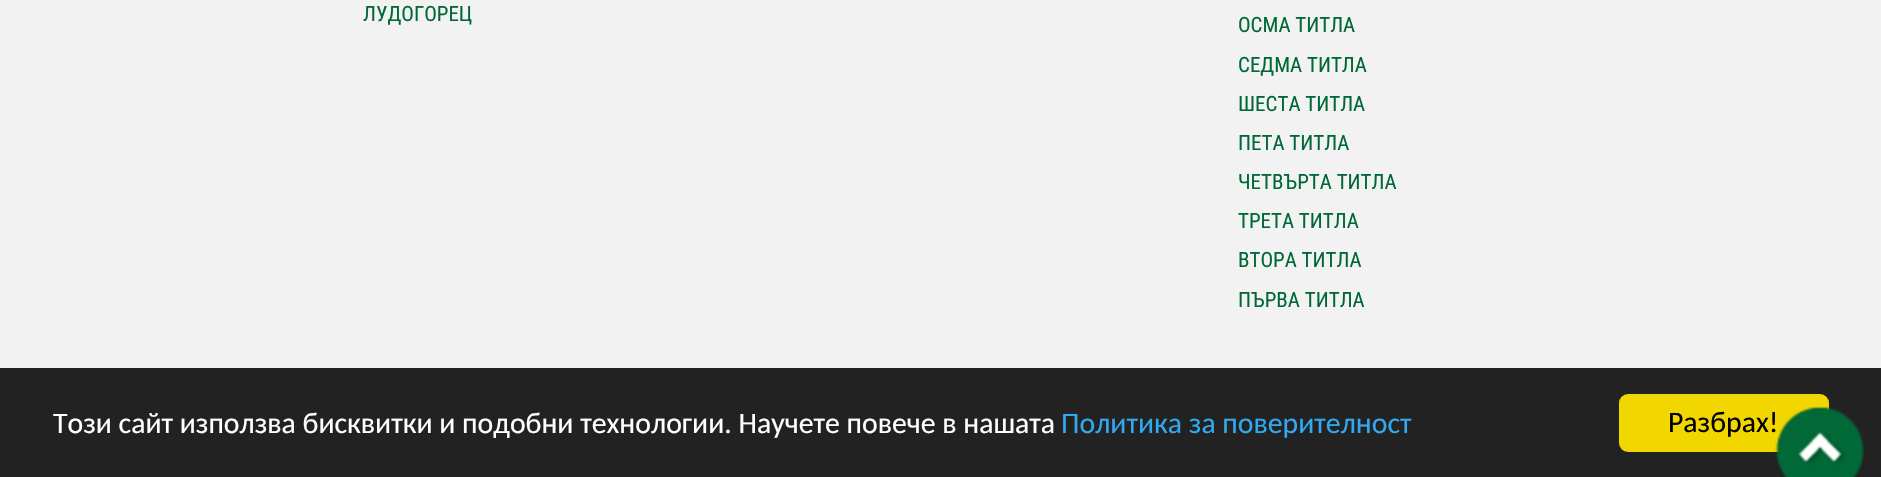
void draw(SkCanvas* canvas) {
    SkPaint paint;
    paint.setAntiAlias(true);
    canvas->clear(0xFFF2F2F2);
    SkFont font1(fontMgr->matchFamilyStyle("Roboto Condensed", SkFontStyle::Normal()), 21);
    font1.setSubpixel(true);
    paint.setColor(0xFF006837);
    canvas->drawString("ЛУДОГОРЕЦ", 363, 21, font1, paint);
    canvas->drawString("ОСМА ТИТЛА", 1238, 32, font1, paint);
    canvas->drawString("СЕДМА ТИТЛА", 1238, 72, font1, paint);
    canvas->drawString("ШЕСТА ТИТЛА", 1238, 111, font1, paint);
    canvas->drawString("ПЕТА ТИТЛА", 1238, 150, font1, paint);
    canvas->drawString("ЧЕТВЪРТА ТИТЛА", 1238, 189, font1, paint);
    canvas->drawString("ТРЕТА ТИТЛА", 1238, 228, font1, paint);
    canvas->drawString("ВТОРА ТИТЛА", 1238, 267, font1, paint);
    canvas->drawString("ПЪРВА ТИТЛА", 1238, 307, font1, paint);
    paint.setColor(0xFF222222);
    canvas->drawRect(SkRect::MakeXYWH(0, 368, 1881, 109), paint);
    SkFont font2(fontMgr->matchFamilyStyle("Carlito", SkFontStyle::Normal()), 29.75f);
    font2.setSubpixel(true);
    paint.setColor(0xFFFFFFFF);
    canvas->drawString("Този сайт използва бисквитки и подобни технологии. Научете повече в нашата", 53, 433, font2, paint);
    paint.setColor(0xFF31A8F0);
    canvas->drawString("Политика за поверителност", 1061, 433, font2, paint);
    paint.setColor(0xFFF1D600);
    canvas->drawRoundRect(SkRect::MakeXYWH(1619, 394, 210, 58), 9, 9, paint);
    paint.setColor(0xFF000000);
    canvas->drawString("Разбрах!", 1668, 432, font2, paint);
    canvas->drawImageRect(SkImages::DeferredFromEncodedData(SkData::MakeFromFileName("img1.png")), SkRect::MakeXYWH(1775, 406, 90, 71), SkSamplingOptions());
}
